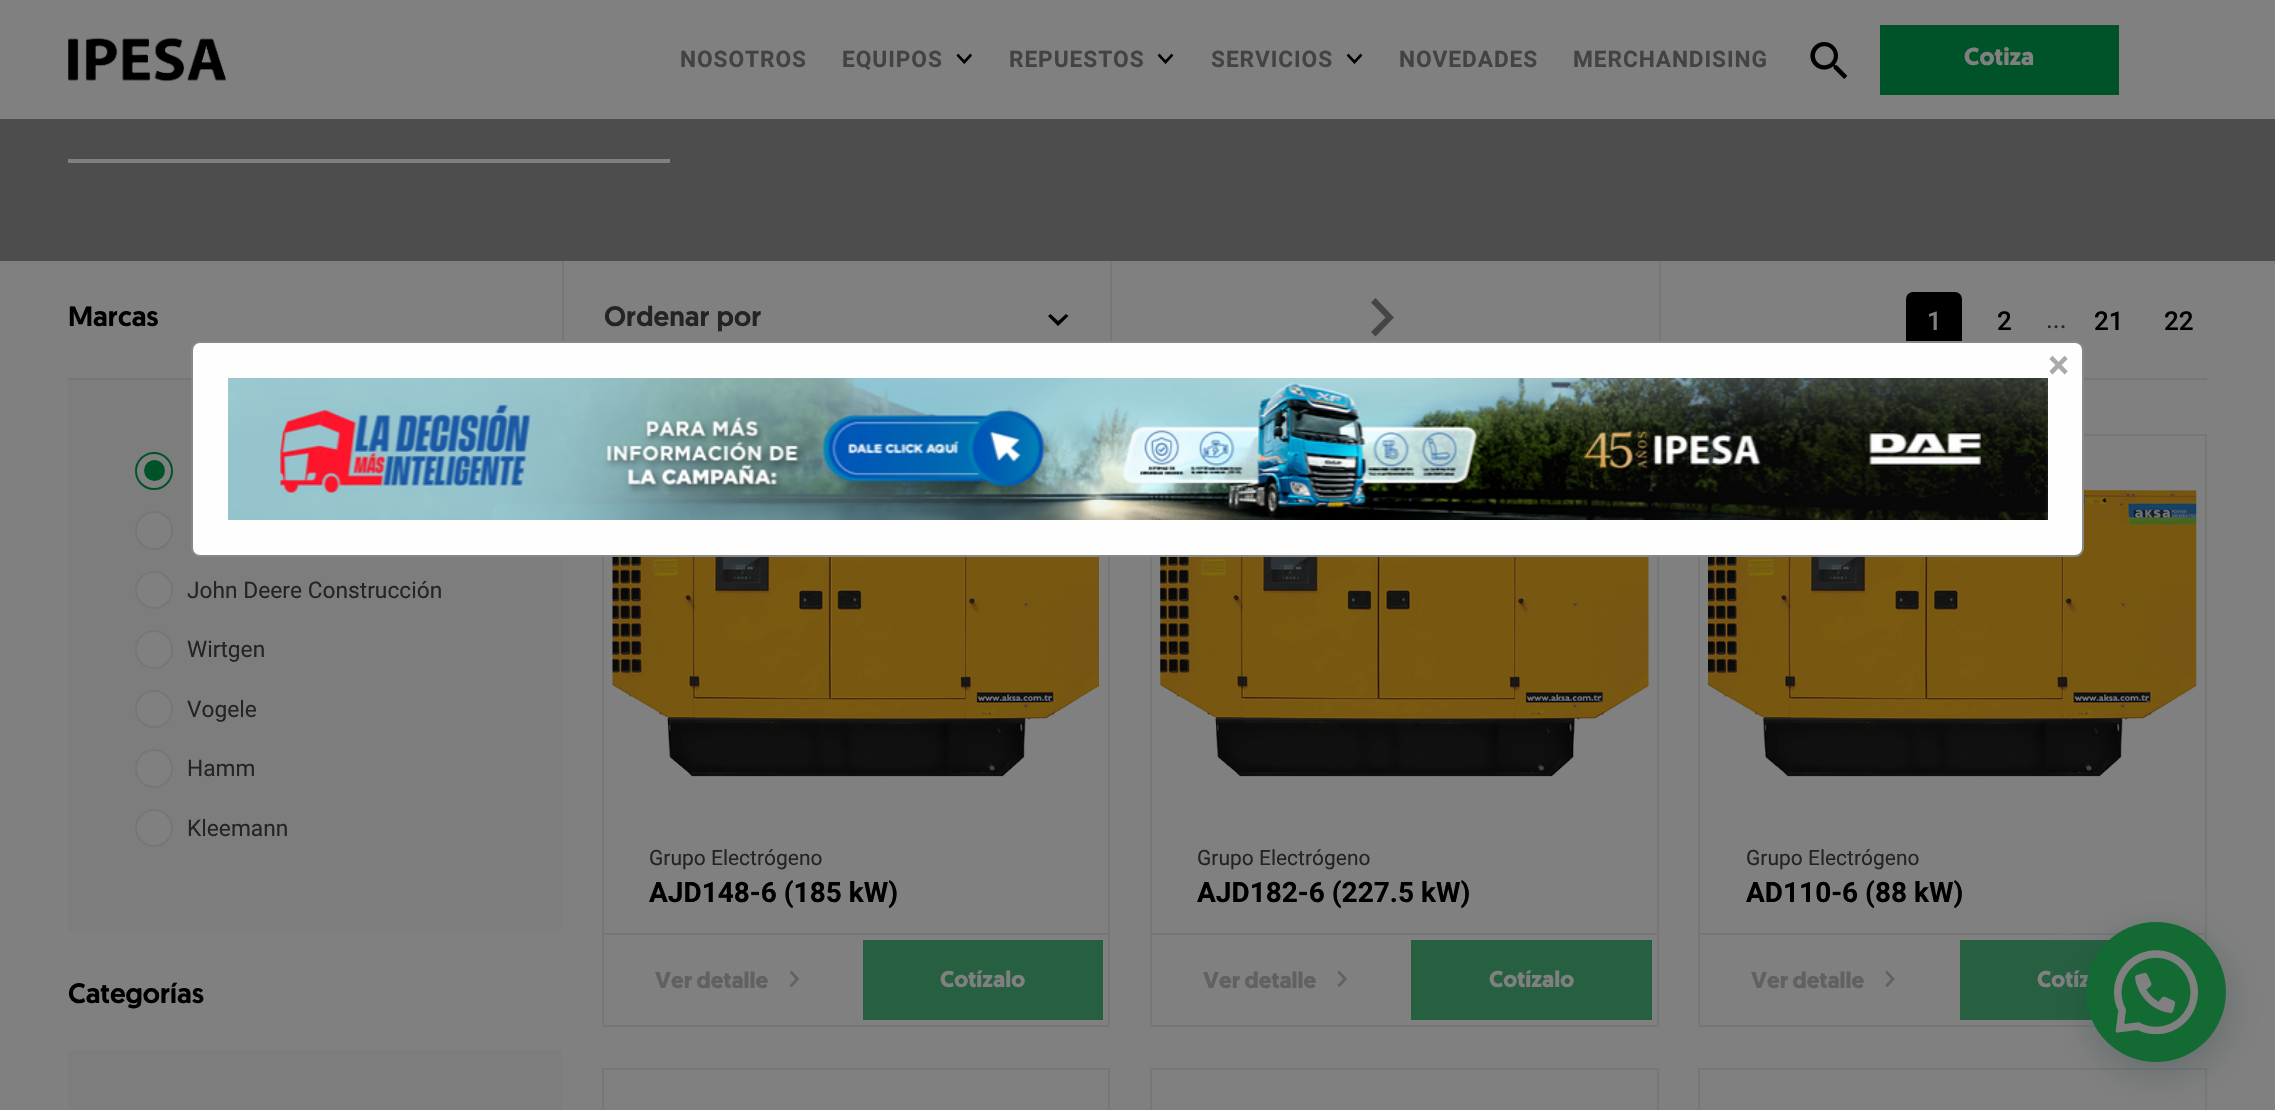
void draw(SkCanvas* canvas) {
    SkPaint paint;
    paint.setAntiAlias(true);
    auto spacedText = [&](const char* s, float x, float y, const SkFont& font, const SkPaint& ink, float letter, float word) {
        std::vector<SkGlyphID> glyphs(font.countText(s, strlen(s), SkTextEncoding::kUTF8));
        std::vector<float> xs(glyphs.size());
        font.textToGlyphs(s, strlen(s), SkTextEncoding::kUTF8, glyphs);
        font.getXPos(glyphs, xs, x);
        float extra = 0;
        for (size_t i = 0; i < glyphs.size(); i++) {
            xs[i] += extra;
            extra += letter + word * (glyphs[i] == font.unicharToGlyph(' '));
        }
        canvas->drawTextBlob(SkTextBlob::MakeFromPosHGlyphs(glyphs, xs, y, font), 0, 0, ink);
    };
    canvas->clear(0xFF808080);
    canvas->drawImageRect(SkImages::DeferredFromEncodedData(SkData::MakeFromFileName("img1.png")), SkRect::MakeXYWH(68, 37, 158, 45), SkSamplingOptions());
    SkFont font1(fontMgr->matchFamilyStyle("Roboto", SkFontStyle::Bold()), 22.75f);
    font1.setSubpixel(true);
    paint.setColor(0xFF434343);
    spacedText("NOSOTROS", 680, 67, font1, paint, 0.9f, 0);
    spacedText("EQUIPOS", 842, 67, font1, paint, 0.9f, 0);
    canvas->drawImageRect(SkImages::DeferredFromEncodedData(SkData::MakeFromFileName("img2.png")), SkRect::MakeXYWH(956, 53, 16, 11), SkSamplingOptions());
    spacedText("REPUESTOS", 1009, 67, font1, paint, 0.9f, 0);
    canvas->drawImageRect(SkImages::DeferredFromEncodedData(SkData::MakeFromFileName("img3.png")), SkRect::MakeXYWH(1157, 53, 17, 11), SkSamplingOptions());
    spacedText("SERVICIOS", 1211, 67, font1, paint, 0.9f, 0);
    canvas->drawImageRect(SkImages::DeferredFromEncodedData(SkData::MakeFromFileName("img3.png")), SkRect::MakeXYWH(1346, 53, 17, 11), SkSamplingOptions());
    spacedText("NOVEDADES", 1399, 67, font1, paint, 0.9f, 0);
    spacedText("MERCHANDISING", 1573, 67, font1, paint, 0.9f, 0);
    canvas->drawImageRect(SkImages::DeferredFromEncodedData(SkData::MakeFromFileName("img4.png")), SkRect::MakeXYWH(1810, 42, 38, 37), SkSamplingOptions());
    paint.setColor(0xFF005328);
    canvas->drawRect(SkRect::MakeXYWH(1880, 25, 239, 70), paint);
    SkFont font2(fontMgr->matchFamilyStyle("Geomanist", SkFontStyle::Bold()), 24.5f);
    font2.setSubpixel(true);
    paint.setColor(0xFF808080);
    canvas->drawString("Cotiza", 1964, 65, font2, paint);
    paint.setColor(0xFF4D4D4D);
    canvas->drawRect(SkRect::MakeXYWH(0, 119, 2275, 142), paint);
    paint.setColor(0xFF808080);
    canvas->drawRect(SkRect::MakeXYWH(68, 159, 602, 4), paint);
    paint.setColor(0xFF777777);
    canvas->drawRect(SkRect::MakeXYWH(68, 378, 2139, 2), paint);
    SkFont font3(fontMgr->matchFamilyStyle("Geomanist", SkFontStyle(500, SkFontStyle::kNormal_Width, SkFontStyle::kUpright_Slant)), 28);
    font3.setSubpixel(true);
    paint.setColor(0xFF000000);
    canvas->drawString("Marcas", 68, 326, font3, paint);
    paint.setColor(0xFF777777);
    canvas->drawRect(SkRect::MakeXYWH(562, 261, 2, 80), paint);
    paint.setColor(0xFF242424);
    canvas->drawString("Ordenar por", 604, 326, font3, paint);
    paint.setColor(0xFF000000);
    canvas->drawPath(SkPathBuilder().moveTo(1060, 319.5f).lineTo(1066, 314).lineTo(1068.5f, 316).lineTo(1058, 326).lineTo(1048, 316).lineTo(1050.5f, 314).lineTo(1058, 321).close().detach(), paint);
    paint.setColor(0xFF777777);
    canvas->drawRect(SkRect::MakeXYWH(1110, 261, 2, 80), paint);
    paint.setColor(0xFF454545);
    canvas->drawPath(SkPathBuilder().moveTo(1371, 332).lineTo(1385.5f, 317.5f).lineTo(1371, 302.5f).lineTo(1375.5f, 298).lineTo(1394, 317.5f).lineTo(1375.5f, 336.5f).close().detach(), paint);
    paint.setColor(0xFF777777);
    canvas->drawRect(SkRect::MakeXYWH(1659, 261, 2, 80), paint);
    paint.setColor(0xFF000000);
    canvas->drawRoundRect(SkRect::MakeXYWH(1906, 292, 56, 56), 7, 7, paint);
    SkFont font4(fontMgr->matchFamilyStyle("Roboto", SkFontStyle(500, SkFontStyle::kNormal_Width, SkFontStyle::kUpright_Slant)), 26);
    font4.setSubpixel(true);
    paint.setColor(0xFF808080);
    canvas->drawString("1", 1927, 330, font4, paint);
    paint.setColor(0xFF000000);
    canvas->drawString("2", 1997, 330, font4, paint);
    SkFont font5(fontMgr->matchFamilyStyle("Roboto", SkFontStyle::Normal()), 26);
    font5.setSubpixel(true);
    paint.setColor(0xFF242424);
    canvas->drawString("...", 2046, 328, font5, paint);
    paint.setColor(0xFF000000);
    canvas->drawString("21", 2094, 330, font4, paint);
    canvas->drawString("22", 2164, 330, font4, paint);
    paint.setColor(0xFF7D7D7D);
    canvas->drawRect(SkRect::MakeXYWH(68, 380, 494, 551), paint);
    paint.setColor(0xFF808080);
    canvas->drawCircle(154, 471, 18, paint);
    paint.setStyle(SkPaint::kStroke_Style);
    paint.setStrokeWidth(2);
    paint.setColor(0xFF005328);
    canvas->drawCircle(154, 471, 18, paint);
    paint.setStyle(SkPaint::kFill_Style);
    canvas->drawCircle(154.5f, 470.5f, 10.5f, paint);
    paint.setColor(0xFF808080);
    canvas->drawRoundRect(SkRect::MakeXYWH(136, 512, 36, 37), 18, 18, paint);
    paint.setStyle(SkPaint::kStroke_Style);
    paint.setColor(0xFF767677);
    canvas->drawRoundRect(SkRect::MakeXYWH(136, 512, 36, 37), 18, 18, paint);
    paint.setStyle(SkPaint::kFill_Style);
    paint.setColor(0xFF808080);
    canvas->drawCircle(154, 590, 18, paint);
    paint.setStyle(SkPaint::kStroke_Style);
    paint.setColor(0xFF767677);
    canvas->drawCircle(154, 590, 18, paint);
    SkFont font6(fontMgr->matchFamilyStyle("Roboto", SkFontStyle::Normal()), 22.75f);
    font6.setSubpixel(true);
    paint.setStyle(SkPaint::kFill_Style);
    paint.setColor(0xFF242424);
    canvas->drawString("John Deere Construcción", 187, 598, font6, paint);
    paint.setColor(0xFF808080);
    canvas->drawRoundRect(SkRect::MakeXYWH(136, 631, 36, 37), 18, 18, paint);
    paint.setStyle(SkPaint::kStroke_Style);
    paint.setColor(0xFF767677);
    canvas->drawRoundRect(SkRect::MakeXYWH(136, 631, 36, 37), 18, 18, paint);
    paint.setStyle(SkPaint::kFill_Style);
    paint.setColor(0xFF242424);
    canvas->drawString("Wirtgen", 187, 657, font6, paint);
    paint.setColor(0xFF808080);
    canvas->drawCircle(154, 709, 18, paint);
    paint.setStyle(SkPaint::kStroke_Style);
    paint.setColor(0xFF767677);
    canvas->drawCircle(154, 709, 18, paint);
    paint.setStyle(SkPaint::kFill_Style);
    paint.setColor(0xFF242424);
    canvas->drawString("Vogele", 187, 717, font6, paint);
    paint.setColor(0xFF808080);
    canvas->drawRoundRect(SkRect::MakeXYWH(136, 750, 36, 37), 18, 18, paint);
    paint.setStyle(SkPaint::kStroke_Style);
    paint.setColor(0xFF767677);
    canvas->drawRoundRect(SkRect::MakeXYWH(136, 750, 36, 37), 18, 18, paint);
    paint.setStyle(SkPaint::kFill_Style);
    paint.setColor(0xFF242424);
    canvas->drawString("Hamm", 187, 776, font6, paint);
    paint.setColor(0xFF808080);
    canvas->drawCircle(154, 828, 18, paint);
    paint.setStyle(SkPaint::kStroke_Style);
    paint.setColor(0xFF767677);
    canvas->drawCircle(154, 828, 18, paint);
    paint.setStyle(SkPaint::kFill_Style);
    paint.setColor(0xFF242424);
    canvas->drawString("Kleemann", 187, 836, font6, paint);
    paint.setColor(0xFF000000);
    canvas->drawString("Categorías", 68, 1003, font3, paint);
    paint.setColor(0xFF7D7D7D);
    canvas->drawRect(SkRect::MakeXYWH(68, 1050, 494, 60), paint);
    paint.setStyle(SkPaint::kStroke_Style);
    paint.setColor(0xFF777777);
    canvas->drawRect(SkRect::MakeXYWH(603, 435, 506, 591), paint);
    canvas->drawImageRect(SkImages::DeferredFromEncodedData(SkData::MakeFromFileName("img5.png")), SkRect::MakeXYWH(612, 557, 487, 220), SkSamplingOptions());
    SkFont font7(fontMgr->matchFamilyStyle("Roboto", SkFontStyle::Normal()), 21);
    font7.setSubpixel(true);
    paint.setStyle(SkPaint::kFill_Style);
    paint.setColor(0xFF242424);
    canvas->drawString("Grupo Electrógeno", 649, 865, font7, paint);
    SkFont font8(fontMgr->matchFamilyStyle("Roboto", SkFontStyle::Bold()), 28);
    font8.setSubpixel(true);
    paint.setColor(0xFF000000);
    canvas->drawString("AJD148-6 (185 kW)", 649, 902, font8, paint);
    paint.setColor(0xFF777777);
    canvas->drawRect(SkRect::MakeXYWH(604, 933, 504, 2), paint);
    SkFont font9(fontMgr->matchFamilyStyle("Geomanist", SkFontStyle::Bold()), 22.75f);
    font9.setSubpixel(true);
    paint.setColor(0xFF616161);
    canvas->drawString("Ver detalle", 655, 988, font9, paint);
    canvas->drawImageRect(SkImages::DeferredFromEncodedData(SkData::MakeFromFileName("img6.png")), SkRect::MakeXYWH(789, 970, 11, 18), SkSamplingOptions());
    paint.setColor(0xFF266041);
    canvas->drawRect(SkRect::MakeXYWH(863, 940, 240, 80), paint);
    paint.setColor(0xFF808080);
    canvas->drawString("Cotízalo", 940, 987, font9, paint);
    paint.setStyle(SkPaint::kStroke_Style);
    paint.setColor(0xFF777777);
    canvas->drawRect(SkRect::MakeXYWH(1151, 435, 507, 591), paint);
    canvas->drawImageRect(SkImages::DeferredFromEncodedData(SkData::MakeFromFileName("img7.png")), SkRect::MakeXYWH(1160, 557, 489, 220), SkSamplingOptions());
    paint.setStyle(SkPaint::kFill_Style);
    paint.setColor(0xFF242424);
    canvas->drawString("Grupo Electrógeno", 1197, 865, font7, paint);
    paint.setColor(0xFF000000);
    canvas->drawString("AJD182-6 (227.5 kW)", 1197, 902, font8, paint);
    paint.setColor(0xFF777777);
    canvas->drawRect(SkRect::MakeXYWH(1152, 933, 505, 2), paint);
    paint.setColor(0xFF616161);
    canvas->drawString("Ver detalle", 1203, 988, font9, paint);
    canvas->drawImageRect(SkImages::DeferredFromEncodedData(SkData::MakeFromFileName("img8.png")), SkRect::MakeXYWH(1337, 970, 10, 18), SkSamplingOptions());
    paint.setColor(0xFF266041);
    canvas->drawRect(SkRect::MakeXYWH(1411, 940, 241, 80), paint);
    paint.setColor(0xFF808080);
    canvas->drawString("Cotízalo", 1489, 987, font9, paint);
    paint.setStyle(SkPaint::kStroke_Style);
    paint.setColor(0xFF777777);
    canvas->drawRect(SkRect::MakeXYWH(1699, 435, 507, 591), paint);
    canvas->drawImageRect(SkImages::DeferredFromEncodedData(SkData::MakeFromFileName("img9.png")), SkRect::MakeXYWH(1708, 481, 489, 296), SkSamplingOptions());
    paint.setStyle(SkPaint::kFill_Style);
    paint.setColor(0xFF242424);
    canvas->drawString("Grupo Electrógeno", 1746, 865, font7, paint);
    paint.setColor(0xFF000000);
    canvas->drawString("AD110-6 (88 kW)", 1746, 902, font8, paint);
    paint.setColor(0x806E6E6E);
    canvas->drawRect(SkRect::MakeXYWH(1699, 933, 506, 2), paint);
    paint.setColor(0xFF616161);
    canvas->drawString("Ver detalle", 1751, 988, font9, paint);
    canvas->drawImageRect(SkImages::DeferredFromEncodedData(SkData::MakeFromFileName("img10.png")), SkRect::MakeXYWH(1885, 970, 10, 18), SkSamplingOptions());
    paint.setColor(0xFF266041);
    canvas->drawRect(SkRect::MakeXYWH(1960, 940, 150, 80), paint);
    paint.setColor(0xFF808080);
    canvas->drawString("Cotíz", 2037, 987, font9, paint);
    paint.setStyle(SkPaint::kStroke_Style);
    paint.setColor(0xFF777777);
    canvas->drawRect(SkRect::MakeXYWH(603, 1069, 506, 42), paint);
    canvas->drawRect(SkRect::MakeXYWH(1151, 1069, 507, 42), paint);
    canvas->drawRect(SkRect::MakeXYWH(1699, 1069, 507, 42), paint);
    paint.setStyle(SkPaint::kFill_Style);
    paint.setColor(0xFFFEFEFE);
    canvas->drawRoundRect(SkRect::MakeXYWH(192, 342, 1891, 214), 8, 8, paint);
    paint.setStyle(SkPaint::kStroke_Style);
    paint.setColor(0xFF888888);
    canvas->drawRoundRect(SkRect::MakeXYWH(192, 342, 1891, 214), 8, 8, paint);
    SkFont font10(fontMgr->matchFamilyStyle("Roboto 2", SkFontStyle::Bold()), 38);
    font10.setSubpixel(true);
    paint.setStyle(SkPaint::kFill_Style);
    paint.setColor(0xFFAAAAAA);
    canvas->drawString("×", 2048, 378, font10, paint);
    canvas->drawImageRect(SkImages::DeferredFromEncodedData(SkData::MakeFromFileName("img11.png")), SkRect::MakeXYWH(228, 378, 1820, 142), SkSamplingOptions());
    paint.setColor(0x3D042F2A);
    paint.setMaskFilter(SkMaskFilter::MakeBlur(kNormal_SkBlurStyle, 21));
    canvas->drawRoundRect(SkRect::MakeXYWH(2088, 933, 140, 140), 70, 70, paint);
    paint.setMaskFilter(nullptr);
    paint.setColor(0xFF136A33);
    canvas->drawCircle(2156, 992, 70, paint);
    canvas->drawImageRect(SkImages::DeferredFromEncodedData(SkData::MakeFromFileName("img12.png")), SkRect::MakeXYWH(2114, 950, 84, 84), SkSamplingOptions());
}
